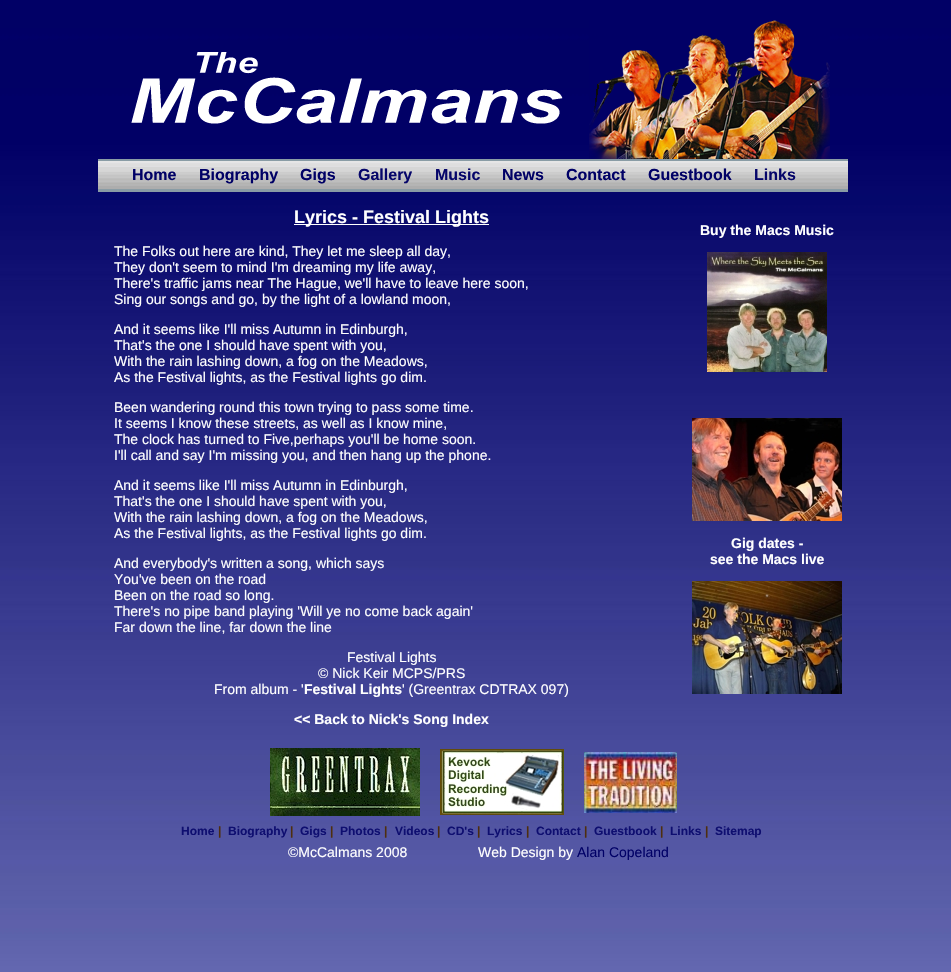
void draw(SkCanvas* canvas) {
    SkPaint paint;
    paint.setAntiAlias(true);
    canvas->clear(0xFFFFFFFF);
    canvas->drawImageRect(SkImages::DeferredFromEncodedData(SkData::MakeFromFileName("img1.png")), SkRect::MakeXYWH(0, 0, 951, 972), SkSamplingOptions());
    canvas->drawImageRect(SkImages::DeferredFromEncodedData(SkData::MakeFromFileName("img2.png")), SkRect::MakeXYWH(131, 52, 432, 72), SkSamplingOptions());
    canvas->drawImageRect(SkImages::DeferredFromEncodedData(SkData::MakeFromFileName("img3.png")), SkRect::MakeXYWH(589, 20, 241, 139), SkSamplingOptions());
    paint.setColor(0xFF899CA5);
    canvas->drawRect(SkRect::MakeXYWH(98, 159, 750, 33), paint);
    canvas->drawImageRect(SkImages::DeferredFromEncodedData(SkData::MakeFromFileName("img4.png")), SkRect::MakeXYWH(98, 161, 750, 28), SkSamplingOptions());
    SkFont font1(fontMgr->matchFamilyStyle("Liberation Sans", SkFontStyle::Bold()), 16);
    font1.setSubpixel(true);
    paint.setColor(0xFF000066);
    canvas->drawString("Home", 132, 180, font1, paint);
    canvas->drawString("Biography", 199, 180, font1, paint);
    canvas->drawString("Gigs", 300, 180, font1, paint);
    paint.setColor(0xFF06066A);
    canvas->drawString("Gallery", 358, 180, font1, paint);
    canvas->drawString("Music", 435, 180, font1, paint);
    paint.setColor(0xFF000066);
    canvas->drawString("News", 502, 180, font1, paint);
    canvas->drawString("Contact", 566, 180, font1, paint);
    canvas->drawString("Guestbook", 648, 180, font1, paint);
    paint.setColor(0xFF06066A);
    canvas->drawString("Links", 754, 180, font1, paint);
    paint.setColor(0xFFFFFFFF);
    canvas->drawRect(SkRect::MakeXYWH(294, 224, 195, 1), paint);
    SkFont font2(fontMgr->matchFamilyStyle("Liberation Sans", SkFontStyle::Bold()), 18);
    font2.setSubpixel(true);
    canvas->drawString("Lyrics - Festival Lights", 294, 223, font2, paint);
    SkFont font3(fontMgr->matchFamilyStyle("Liberation Sans", SkFontStyle::Normal()), 14);
    font3.setSubpixel(true);
    canvas->drawString("The Folks out here are kind, They let me sleep all day,", 114, 256, font3, paint);
    canvas->drawString("They don't seem to mind I'm dreaming my life away,", 114, 272, font3, paint);
    canvas->drawString("There's traffic jams near The Hague, we'll have to leave here soon,", 114, 288, font3, paint);
    canvas->drawString("Sing our songs and go, by the light of a lowland moon,", 114, 304, font3, paint);
    canvas->drawString("And it seems like I'll miss Autumn in Edinburgh,", 114, 334, font3, paint);
    canvas->drawString("That's the one I should have spent with you,", 114, 350, font3, paint);
    canvas->drawString("With the rain lashing down, a fog on the Meadows,", 114, 366, font3, paint);
    canvas->drawString("As the Festival lights, as the Festival lights go dim.", 114, 382, font3, paint);
    canvas->drawString("Been wandering round this town trying to pass some time.", 114, 412, font3, paint);
    canvas->drawString("It seems I know these streets, as well as I know mine,", 114, 428, font3, paint);
    canvas->drawString("The clock has turned to Five,perhaps you'll be home soon.", 114, 444, font3, paint);
    canvas->drawString("I'll call and say I'm missing you, and then hang up the phone.", 114, 460, font3, paint);
    canvas->drawString("And it seems like I'll miss Autumn in Edinburgh,", 114, 490, font3, paint);
    canvas->drawString("That's the one I should have spent with you,", 114, 506, font3, paint);
    canvas->drawString("With the rain lashing down, a fog on the Meadows,", 114, 522, font3, paint);
    canvas->drawString("As the Festival lights, as the Festival lights go dim.", 114, 538, font3, paint);
    canvas->drawString("And everybody's written a song, which says", 114, 568, font3, paint);
    canvas->drawString("You've been on the road", 114, 584, font3, paint);
    canvas->drawString("Been on the road so long.", 114, 600, font3, paint);
    canvas->drawString("There's no pipe band playing 'Will ye no come back again'", 114, 616, font3, paint);
    canvas->drawString("Far down the line, far down the line", 114, 632, font3, paint);
    canvas->drawString("Festival Lights", 347, 662, font3, paint);
    canvas->drawString("© Nick Keir MCPS/PRS", 318, 678, font3, paint);
    canvas->drawString("From album - '", 214, 694, font3, paint);
    SkFont font4(fontMgr->matchFamilyStyle("Liberation Sans", SkFontStyle::Bold()), 14);
    font4.setSubpixel(true);
    canvas->drawString("Festival Lights", 304, 694, font4, paint);
    canvas->drawString("' (Greentrax CDTRAX 097)", 402, 694, font3, paint);
    canvas->drawString("<< Back to Nick's Song Index", 294, 724, font4, paint);
    canvas->drawString("Buy the Macs Music", 700, 235, font4, paint);
    canvas->drawImageRect(SkImages::DeferredFromEncodedData(SkData::MakeFromFileName("img5.png")), SkRect::MakeXYWH(707, 252, 120, 120), SkSamplingOptions());
    canvas->drawImageRect(SkImages::DeferredFromEncodedData(SkData::MakeFromFileName("img6.png")), SkRect::MakeXYWH(692, 418, 150, 103), SkSamplingOptions());
    canvas->drawString("Gig dates -", 731, 548, font4, paint);
    canvas->drawString("see the Macs live", 710, 564, font4, paint);
    canvas->drawImageRect(SkImages::DeferredFromEncodedData(SkData::MakeFromFileName("img7.png")), SkRect::MakeXYWH(692, 581, 150, 113), SkSamplingOptions());
    canvas->drawImageRect(SkImages::DeferredFromEncodedData(SkData::MakeFromFileName("img8.png")), SkRect::MakeXYWH(270, 748, 150, 68), SkSamplingOptions());
    canvas->drawImageRect(SkImages::DeferredFromEncodedData(SkData::MakeFromFileName("img9.png")), SkRect::MakeXYWH(440, 749, 124, 66), SkSamplingOptions());
    canvas->drawImageRect(SkImages::DeferredFromEncodedData(SkData::MakeFromFileName("img10.png")), SkRect::MakeXYWH(584, 752, 93, 61), SkSamplingOptions());
    SkFont font5(fontMgr->matchFamilyStyle("Liberation Sans", SkFontStyle::Bold()), 12);
    font5.setSubpixel(true);
    paint.setColor(0xFF0E0E70);
    canvas->drawString("Home", 181, 835, font5, paint);
    paint.setColor(0xFF4E2E0E);
    canvas->drawString("|", 218, 835, font5, paint);
    paint.setColor(0xFF0E0E70);
    canvas->drawString("Biography", 228, 835, font5, paint);
    paint.setColor(0xFF4E2E0E);
    canvas->drawString("|", 290, 835, font5, paint);
    paint.setColor(0xFF0E0E70);
    canvas->drawString("Gigs", 300, 835, font5, paint);
    paint.setColor(0xFF4E2E0E);
    canvas->drawString("|", 330, 835, font5, paint);
    paint.setColor(0xFF0E0E70);
    canvas->drawString("Photos", 340, 835, font5, paint);
    paint.setColor(0xFF4E2E0E);
    canvas->drawString("|", 384, 835, font5, paint);
    paint.setColor(0xFF0E0E70);
    canvas->drawString("Videos", 395, 835, font5, paint);
    paint.setColor(0xFF4E2E0E);
    canvas->drawString("|", 437, 835, font5, paint);
    paint.setColor(0xFF0E0E70);
    canvas->drawString("CD's", 447, 835, font5, paint);
    paint.setColor(0xFF4E2E0E);
    canvas->drawString("|", 477, 835, font5, paint);
    paint.setColor(0xFF0E0E70);
    canvas->drawString("Lyrics", 487, 835, font5, paint);
    paint.setColor(0xFF4E2E0E);
    canvas->drawString("|", 526, 835, font5, paint);
    paint.setColor(0xFF0E0E70);
    canvas->drawString("Contact", 536, 835, font5, paint);
    paint.setColor(0xFF4E2E0E);
    canvas->drawString("|", 584, 835, font5, paint);
    paint.setColor(0xFF0E0E70);
    canvas->drawString("Guestbook", 594, 835, font5, paint);
    paint.setColor(0xFF4E2E0E);
    canvas->drawString("|", 660, 835, font5, paint);
    paint.setColor(0xFF0E0E70);
    canvas->drawString("Links", 670, 835, font5, paint);
    paint.setColor(0xFF4E2E0E);
    canvas->drawString("|", 705, 835, font5, paint);
    paint.setColor(0xFF0E0E70);
    canvas->drawString("Sitemap", 715, 835, font5, paint);
    paint.setColor(0xFFFFFFFF);
    canvas->drawString("©McCalmans 2008", 288, 857, font3, paint);
    canvas->drawString("Web Design by", 478, 857, font3, paint);
    paint.setColor(0xFF000066);
    canvas->drawString("Alan Copeland", 577, 857, font3, paint);
}
